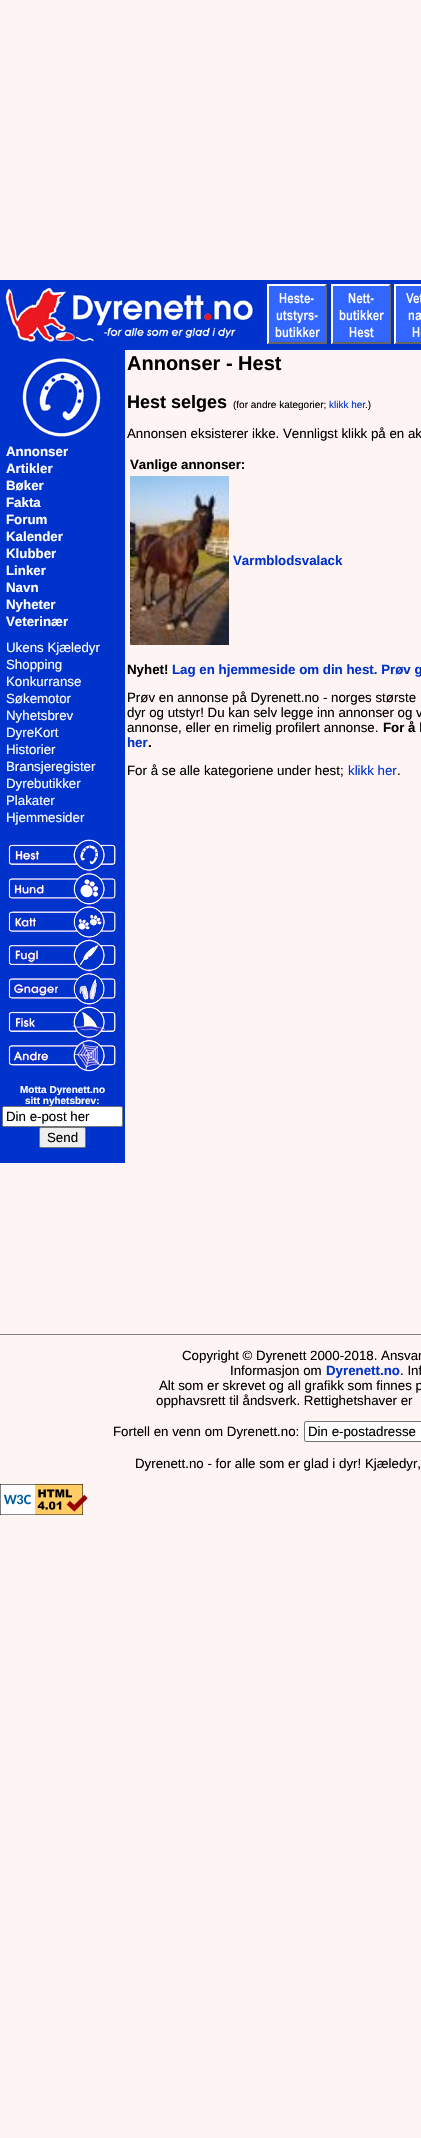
void draw(SkCanvas* canvas) {
    SkPaint paint;
    paint.setAntiAlias(true);
    canvas->clear(0xFFFFF4F4);
    paint.setColor(0xFF0033CC);
    canvas->drawRect(SkRect::MakeXYWH(0, 280, 421, 70), paint);
    canvas->drawImageRect(SkImages::DeferredFromEncodedData(SkData::MakeFromFileName("img1.png")), SkRect::MakeXYWH(4, 287, 250, 56), SkSamplingOptions());
    canvas->drawImageRect(SkImages::DeferredFromEncodedData(SkData::MakeFromFileName("img2.png")), SkRect::MakeXYWH(267, 284, 60, 60), SkSamplingOptions());
    canvas->drawImageRect(SkImages::DeferredFromEncodedData(SkData::MakeFromFileName("img3.png")), SkRect::MakeXYWH(331, 284, 60, 60), SkSamplingOptions());
    canvas->drawImageRect(SkImages::DeferredFromEncodedData(SkData::MakeFromFileName("img4.png")), SkRect::MakeXYWH(394, 284, 27, 60), SkSamplingOptions());
    canvas->drawRect(SkRect::MakeXYWH(0, 350, 125, 813), paint);
    canvas->drawImageRect(SkImages::DeferredFromEncodedData(SkData::MakeFromFileName("img5.png")), SkRect::MakeXYWH(21, 357, 81, 81), SkSamplingOptions());
    SkFont font1(fontMgr->matchFamilyStyle("Liberation Sans", SkFontStyle::Bold()), 13.3f);
    font1.setSubpixel(true);
    paint.setColor(0xFFFFFFFF);
    canvas->drawString("Annonser", 6, 456, font1, paint);
    canvas->drawString("Artikler", 6, 473, font1, paint);
    canvas->drawString("Bøker", 6, 490, font1, paint);
    canvas->drawString("Fakta", 6, 507, font1, paint);
    canvas->drawString("Forum", 6, 524, font1, paint);
    canvas->drawString("Kalender", 6, 541, font1, paint);
    canvas->drawString("Klubber", 6, 558, font1, paint);
    canvas->drawString("Linker", 6, 575, font1, paint);
    canvas->drawString("Navn", 6, 592, font1, paint);
    canvas->drawString("Nyheter", 6, 609, font1, paint);
    canvas->drawString("Veterinær", 6, 626, font1, paint);
    SkFont font2(fontMgr->matchFamilyStyle("Liberation Sans", SkFontStyle::Normal()), 13.3f);
    font2.setSubpixel(true);
    canvas->drawString("Ukens Kjæledyr", 6, 652, font2, paint);
    canvas->drawString("Shopping", 6, 669, font2, paint);
    canvas->drawString("Konkurranse", 6, 686, font2, paint);
    canvas->drawString("Søkemotor", 6, 703, font2, paint);
    canvas->drawString("Nyhetsbrev", 6, 720, font2, paint);
    canvas->drawString("DyreKort", 6, 737, font2, paint);
    canvas->drawString("Historier", 6, 754, font2, paint);
    canvas->drawString("Bransjeregister", 6, 771, font2, paint);
    canvas->drawString("Dyrebutikker", 6, 788, font2, paint);
    canvas->drawString("Plakater", 6, 805, font2, paint);
    canvas->drawString("Hjemmesider", 6, 822, font2, paint);
    canvas->drawImageRect(SkImages::DeferredFromEncodedData(SkData::MakeFromFileName("img6.png")), SkRect::MakeXYWH(8, 839, 108, 233), SkSamplingOptions());
    SkFont font3(fontMgr->matchFamilyStyle("Liberation Sans", SkFontStyle::Bold()), 10);
    font3.setSubpixel(true);
    canvas->drawString("Motta Dyrenett.no", 20, 1093, font3, paint);
    canvas->drawString("sitt nyhetsbrev:", 25, 1104, font3, paint);
    canvas->drawRoundRect(SkRect::MakeXYWH(2.5f, 1106.5f, 120, 20), 1.5f, 1.5f, paint);
    paint.setStyle(SkPaint::kStroke_Style);
    paint.setStrokeWidth(1);
    paint.setColor(0xFF767676);
    canvas->drawRoundRect(SkRect::MakeXYWH(2.5f, 1106.5f, 120, 20), 1.5f, 1.5f, paint);
    paint.setStyle(SkPaint::kFill_Style);
    paint.setColor(0xFF000000);
    canvas->drawString("Din e-post her", 6, 1121, font2, paint);
    paint.setColor(0xFFEFEFEF);
    canvas->drawRoundRect(SkRect::MakeXYWH(39.5f, 1127.5f, 46, 20), 1.5f, 1.5f, paint);
    paint.setStyle(SkPaint::kStroke_Style);
    paint.setColor(0xFF767676);
    canvas->drawRoundRect(SkRect::MakeXYWH(39.5f, 1127.5f, 46, 20), 1.5f, 1.5f, paint);
    paint.setStyle(SkPaint::kFill_Style);
    paint.setColor(0xFF000000);
    canvas->drawString("Send", 47, 1142, font2, paint);
    SkFont font4(fontMgr->matchFamilyStyle("Liberation Sans", SkFontStyle::Bold()), 20);
    font4.setSubpixel(true);
    canvas->drawString("Annonser - Hest", 127, 370, font4, paint);
    SkFont font5(fontMgr->matchFamilyStyle("Liberation Sans", SkFontStyle::Bold()), 18);
    font5.setSubpixel(true);
    canvas->drawString("Hest selges", 127, 408, font5, paint);
    SkFont font6(fontMgr->matchFamilyStyle("Liberation Sans", SkFontStyle::Normal()), 10);
    font6.setSubpixel(true);
    canvas->drawString("(for andre kategorier;", 233, 408, font6, paint);
    paint.setColor(0xFF0033CC);
    canvas->drawString("klikk her", 329, 408, font6, paint);
    paint.setColor(0xFF000000);
    canvas->drawString(".)", 365, 408, font6, paint);
    canvas->drawString("Annonsen eksisterer ikke. Vennligst klikk på en ak", 127, 438, font2, paint);
    canvas->drawString("Vanlige annonser:", 130, 469, font1, paint);
    canvas->drawImageRect(SkImages::DeferredFromEncodedData(SkData::MakeFromFileName("img7.png")), SkRect::MakeXYWH(130, 476, 99, 169), SkSamplingOptions());
    paint.setColor(0xFF0033CC);
    canvas->drawString("Varmblodsvalack", 233, 565, font1, paint);
    paint.setColor(0xFF000000);
    canvas->drawString("Nyhet!", 127, 674, font1, paint);
    paint.setColor(0xFF0033CC);
    canvas->drawString("Lag en hjemmeside om din hest. Prøv g", 172, 674, font1, paint);
    paint.setColor(0xFF000000);
    canvas->drawString("Prøv en annonse på Dyrenett.no - norges største", 127, 702, font2, paint);
    canvas->drawString("dyr og utstyr! Du kan selv legge inn annonser og v", 127, 717, font2, paint);
    canvas->drawString("annonse, eller en rimelig profilert annonse.", 127, 732, font2, paint);
    canvas->drawString("For å l", 383, 732, font1, paint);
    paint.setColor(0xFF0033CC);
    canvas->drawString("her", 127, 747, font1, paint);
    paint.setColor(0xFF000000);
    canvas->drawString(".", 148, 747, font1, paint);
    canvas->drawString("For å se alle kategoriene under hest;", 127, 775, font2, paint);
    paint.setColor(0xFF0033CC);
    canvas->drawString("klikk her", 348, 775, font2, paint);
    paint.setColor(0xFF000000);
    canvas->drawString(".", 397, 775, font2, paint);
    paint.setColor(0xFF808080);
    canvas->drawRect(SkRect::MakeXYWH(0, 1334, 421, 1), paint);
    paint.setColor(0xFF000000);
    canvas->drawString("Copyright © Dyrenett 2000-2018. Ansvar", 182, 1360, font2, paint);
    canvas->drawString("Informasjon om", 230, 1375, font2, paint);
    paint.setColor(0xFF0033CC);
    canvas->drawString("Dyrenett.no", 326, 1375, font1, paint);
    paint.setColor(0xFF000000);
    canvas->drawString(". Inf", 400, 1375, font2, paint);
    canvas->drawString("Alt som er skrevet og all grafikk som finnes p", 159, 1390, font2, paint);
    canvas->drawString("opphavsrett til åndsverk. Rettighetshaver er", 156, 1405, font2, paint);
    canvas->drawString("Fortell en venn om Dyrenett.no:", 113, 1436, font2, paint);
    paint.setColor(0xFFFFFFFF);
    canvas->drawRoundRect(SkRect::MakeXYWH(304.5f, 1421.5f, 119, 20), 1.5f, 1.5f, paint);
    paint.setStyle(SkPaint::kStroke_Style);
    paint.setColor(0xFF767676);
    canvas->drawRoundRect(SkRect::MakeXYWH(304.5f, 1421.5f, 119, 20), 1.5f, 1.5f, paint);
    paint.setStyle(SkPaint::kFill_Style);
    paint.setColor(0xFF000000);
    canvas->drawString("Din e-postadresse", 308, 1436, font2, paint);
    canvas->drawString("Dyrenett.no - for alle som er glad i dyr! Kjæledyr,", 135, 1468, font2, paint);
    canvas->drawImageRect(SkImages::DeferredFromEncodedData(SkData::MakeFromFileName("img8.png")), SkRect::MakeXYWH(0, 1484, 88, 31), SkSamplingOptions());
}
